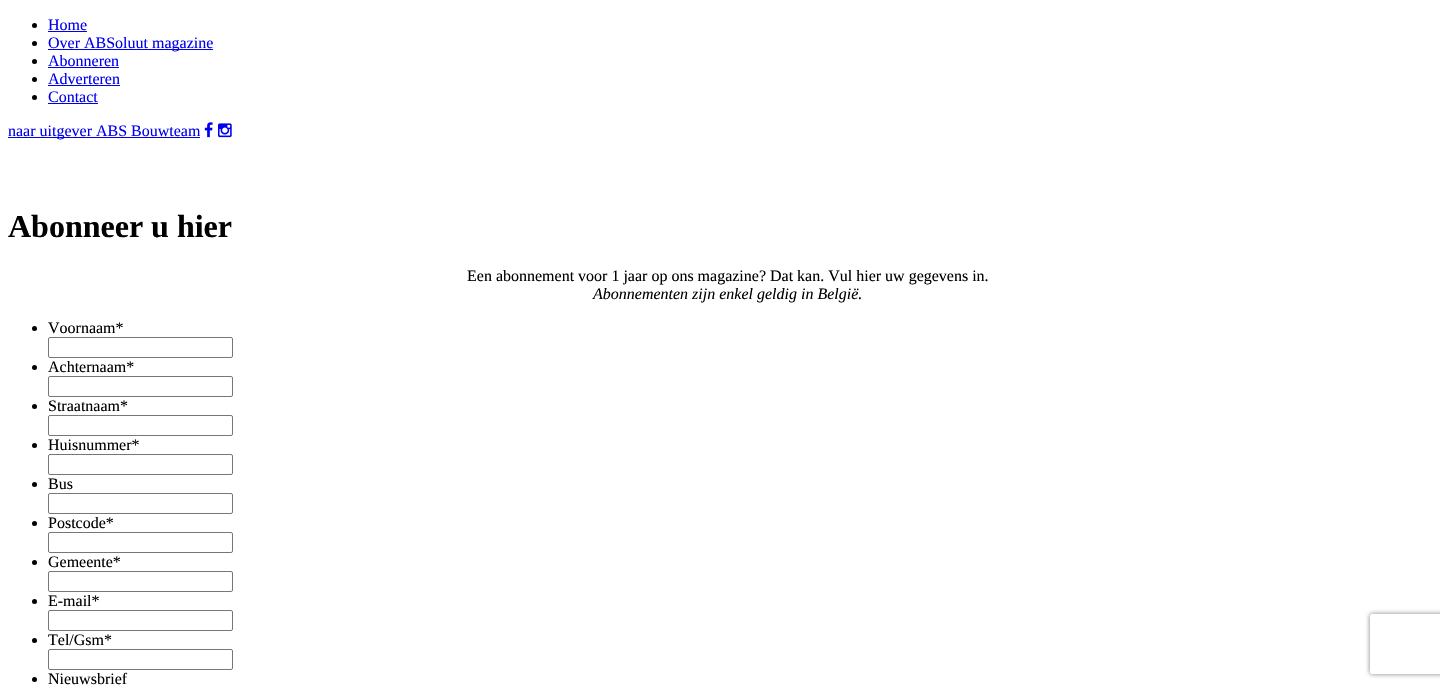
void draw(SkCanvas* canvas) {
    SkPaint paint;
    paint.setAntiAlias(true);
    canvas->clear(0xFFFFFFFF);
    paint.setColor(0xFF000000);
    canvas->drawCircle(34.5f, 25.5f, 2.5f, paint);
    SkFont font1(fontMgr->matchFamilyStyle("Liberation Serif", SkFontStyle::Normal()), 16);
    font1.setSubpixel(true);
    paint.setColor(0xFF0000EE);
    canvas->drawString("Home", 48, 30, font1, paint);
    canvas->drawRect(SkRect::MakeXYWH(48, 31, 39, 1), paint);
    paint.setColor(0xFF000000);
    canvas->drawCircle(34.5f, 43.5f, 2.5f, paint);
    paint.setColor(0xFF0000EE);
    canvas->drawRect(SkRect::MakeXYWH(48, 49, 165, 1), paint);
    canvas->drawString("Over ABSoluut magazine", 48, 48, font1, paint);
    paint.setColor(0xFF000000);
    canvas->drawCircle(34.5f, 61.5f, 2.5f, paint);
    paint.setColor(0xFF0000EE);
    canvas->drawString("Abonneren", 48, 66, font1, paint);
    canvas->drawRect(SkRect::MakeXYWH(48, 67, 71, 1), paint);
    paint.setColor(0xFF000000);
    canvas->drawCircle(34.5f, 79.5f, 2.5f, paint);
    paint.setColor(0xFF0000EE);
    canvas->drawString("Adverteren", 48, 84, font1, paint);
    canvas->drawRect(SkRect::MakeXYWH(48, 85, 72, 1), paint);
    paint.setColor(0xFF000000);
    canvas->drawCircle(34.5f, 97.5f, 2.5f, paint);
    paint.setColor(0xFF0000EE);
    canvas->drawString("Contact", 48, 102, font1, paint);
    canvas->drawRect(SkRect::MakeXYWH(48, 103, 50, 1), paint);
    canvas->drawRect(SkRect::MakeXYWH(8, 137, 192, 1), paint);
    canvas->drawString("naar uitgever ABS Bouwteam", 8, 136, font1, paint);
    canvas->drawImageRect(SkImages::DeferredFromEncodedData(SkData::MakeFromFileName("img1.png")), SkRect::MakeXYWH(204, 122, 9, 16), SkSamplingOptions());
    canvas->drawImageRect(SkImages::DeferredFromEncodedData(SkData::MakeFromFileName("img2.png")), SkRect::MakeXYWH(218, 123, 14, 15), SkSamplingOptions());
    SkFont font2(fontMgr->matchFamilyStyle("Liberation Serif", SkFontStyle::Bold()), 32);
    font2.setSubpixel(true);
    paint.setColor(0xFF000000);
    canvas->drawString("Abonneer u hier", 8, 237, font2, paint);
    canvas->drawString("Een abonnement voor 1 jaar op ons magazine? Dat kan. Vul hier uw gegevens in.", 467, 281, font1, paint);
    SkFont font3(fontMgr->matchFamilyStyle("Liberation Serif", SkFontStyle::Italic()), 16);
    font3.setSubpixel(true);
    canvas->drawString("Abonnementen zijn enkel geldig in België.", 593, 299, font3, paint);
    canvas->drawCircle(34.5f, 328.5f, 2.5f, paint);
    canvas->drawString("Voornaam*", 48, 333, font1, paint);
    paint.setStyle(SkPaint::kStroke_Style);
    paint.setStrokeWidth(1);
    paint.setColor(0xFF767676);
    canvas->drawRoundRect(SkRect::MakeXYWH(48.5f, 337.5f, 184, 20), 1.5f, 1.5f, paint);
    paint.setStyle(SkPaint::kFill_Style);
    paint.setColor(0xFF000000);
    canvas->drawCircle(34.5f, 367.5f, 2.5f, paint);
    canvas->drawString("Achternaam*", 48, 372, font1, paint);
    paint.setStyle(SkPaint::kStroke_Style);
    paint.setColor(0xFF767676);
    canvas->drawRoundRect(SkRect::MakeXYWH(48.5f, 376.5f, 184, 20), 1.5f, 1.5f, paint);
    paint.setStyle(SkPaint::kFill_Style);
    paint.setColor(0xFF000000);
    canvas->drawCircle(34.5f, 406.5f, 2.5f, paint);
    canvas->drawString("Straatnaam*", 48, 411, font1, paint);
    paint.setStyle(SkPaint::kStroke_Style);
    paint.setColor(0xFF767676);
    canvas->drawRoundRect(SkRect::MakeXYWH(48.5f, 415.5f, 184, 20), 1.5f, 1.5f, paint);
    paint.setStyle(SkPaint::kFill_Style);
    paint.setColor(0xFF000000);
    canvas->drawCircle(34.5f, 445.5f, 2.5f, paint);
    canvas->drawString("Huisnummer*", 48, 450, font1, paint);
    paint.setStyle(SkPaint::kStroke_Style);
    paint.setColor(0xFF767676);
    canvas->drawRoundRect(SkRect::MakeXYWH(48.5f, 454.5f, 184, 20), 1.5f, 1.5f, paint);
    paint.setStyle(SkPaint::kFill_Style);
    paint.setColor(0xFF000000);
    canvas->drawCircle(34.5f, 484.5f, 2.5f, paint);
    canvas->drawString("Bus", 48, 489, font1, paint);
    paint.setStyle(SkPaint::kStroke_Style);
    paint.setColor(0xFF767676);
    canvas->drawRoundRect(SkRect::MakeXYWH(48.5f, 493.5f, 184, 20), 1.5f, 1.5f, paint);
    paint.setStyle(SkPaint::kFill_Style);
    paint.setColor(0xFF000000);
    canvas->drawCircle(34.5f, 523.5f, 2.5f, paint);
    canvas->drawString("Postcode*", 48, 528, font1, paint);
    paint.setStyle(SkPaint::kStroke_Style);
    paint.setColor(0xFF767676);
    canvas->drawRoundRect(SkRect::MakeXYWH(48.5f, 532.5f, 184, 20), 1.5f, 1.5f, paint);
    paint.setStyle(SkPaint::kFill_Style);
    paint.setColor(0xFF000000);
    canvas->drawCircle(34.5f, 562.5f, 2.5f, paint);
    canvas->drawString("Gemeente*", 48, 567, font1, paint);
    paint.setStyle(SkPaint::kStroke_Style);
    paint.setColor(0xFF767676);
    canvas->drawRoundRect(SkRect::MakeXYWH(48.5f, 571.5f, 184, 20), 1.5f, 1.5f, paint);
    paint.setStyle(SkPaint::kFill_Style);
    paint.setColor(0xFF000000);
    canvas->drawCircle(34.5f, 601.5f, 2.5f, paint);
    canvas->drawString("E-mail*", 48, 606, font1, paint);
    paint.setStyle(SkPaint::kStroke_Style);
    paint.setColor(0xFF767676);
    canvas->drawRoundRect(SkRect::MakeXYWH(48.5f, 610.5f, 184, 20), 1.5f, 1.5f, paint);
    paint.setStyle(SkPaint::kFill_Style);
    paint.setColor(0xFF000000);
    canvas->drawCircle(34.5f, 640.5f, 2.5f, paint);
    canvas->drawString("Tel/Gsm*", 48, 645, font1, paint);
    paint.setStyle(SkPaint::kStroke_Style);
    paint.setColor(0xFF767676);
    canvas->drawRoundRect(SkRect::MakeXYWH(48.5f, 649.5f, 184, 20), 1.5f, 1.5f, paint);
    paint.setStyle(SkPaint::kFill_Style);
    paint.setColor(0xFF000000);
    canvas->drawCircle(34.5f, 679.5f, 2.5f, paint);
    canvas->drawString("Nieuwsbrief", 48, 684, font1, paint);
    canvas->save();
    canvas->clipPath(SkPathBuilder(SkPathFillType::kEvenOdd).moveTo(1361, 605).lineTo(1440, 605).lineTo(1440, 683).lineTo(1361, 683).close().moveTo(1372, 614).lineTo(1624, 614).cubicTo(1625, 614, 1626, 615, 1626, 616).lineTo(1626, 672).cubicTo(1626, 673, 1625, 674, 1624, 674).lineTo(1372, 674).cubicTo(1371, 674, 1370, 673, 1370, 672).lineTo(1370, 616).cubicTo(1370, 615, 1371, 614, 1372, 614).close().detach(), true);
    paint.setColor(0xFF808080);
    paint.setMaskFilter(SkMaskFilter::MakeBlur(kNormal_SkBlurStyle, 2.5f));
    canvas->drawRoundRect(SkRect::MakeXYWH(1370, 614, 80, 60), 2, 2, paint);
    paint.setMaskFilter(nullptr);
    canvas->restore();
}
